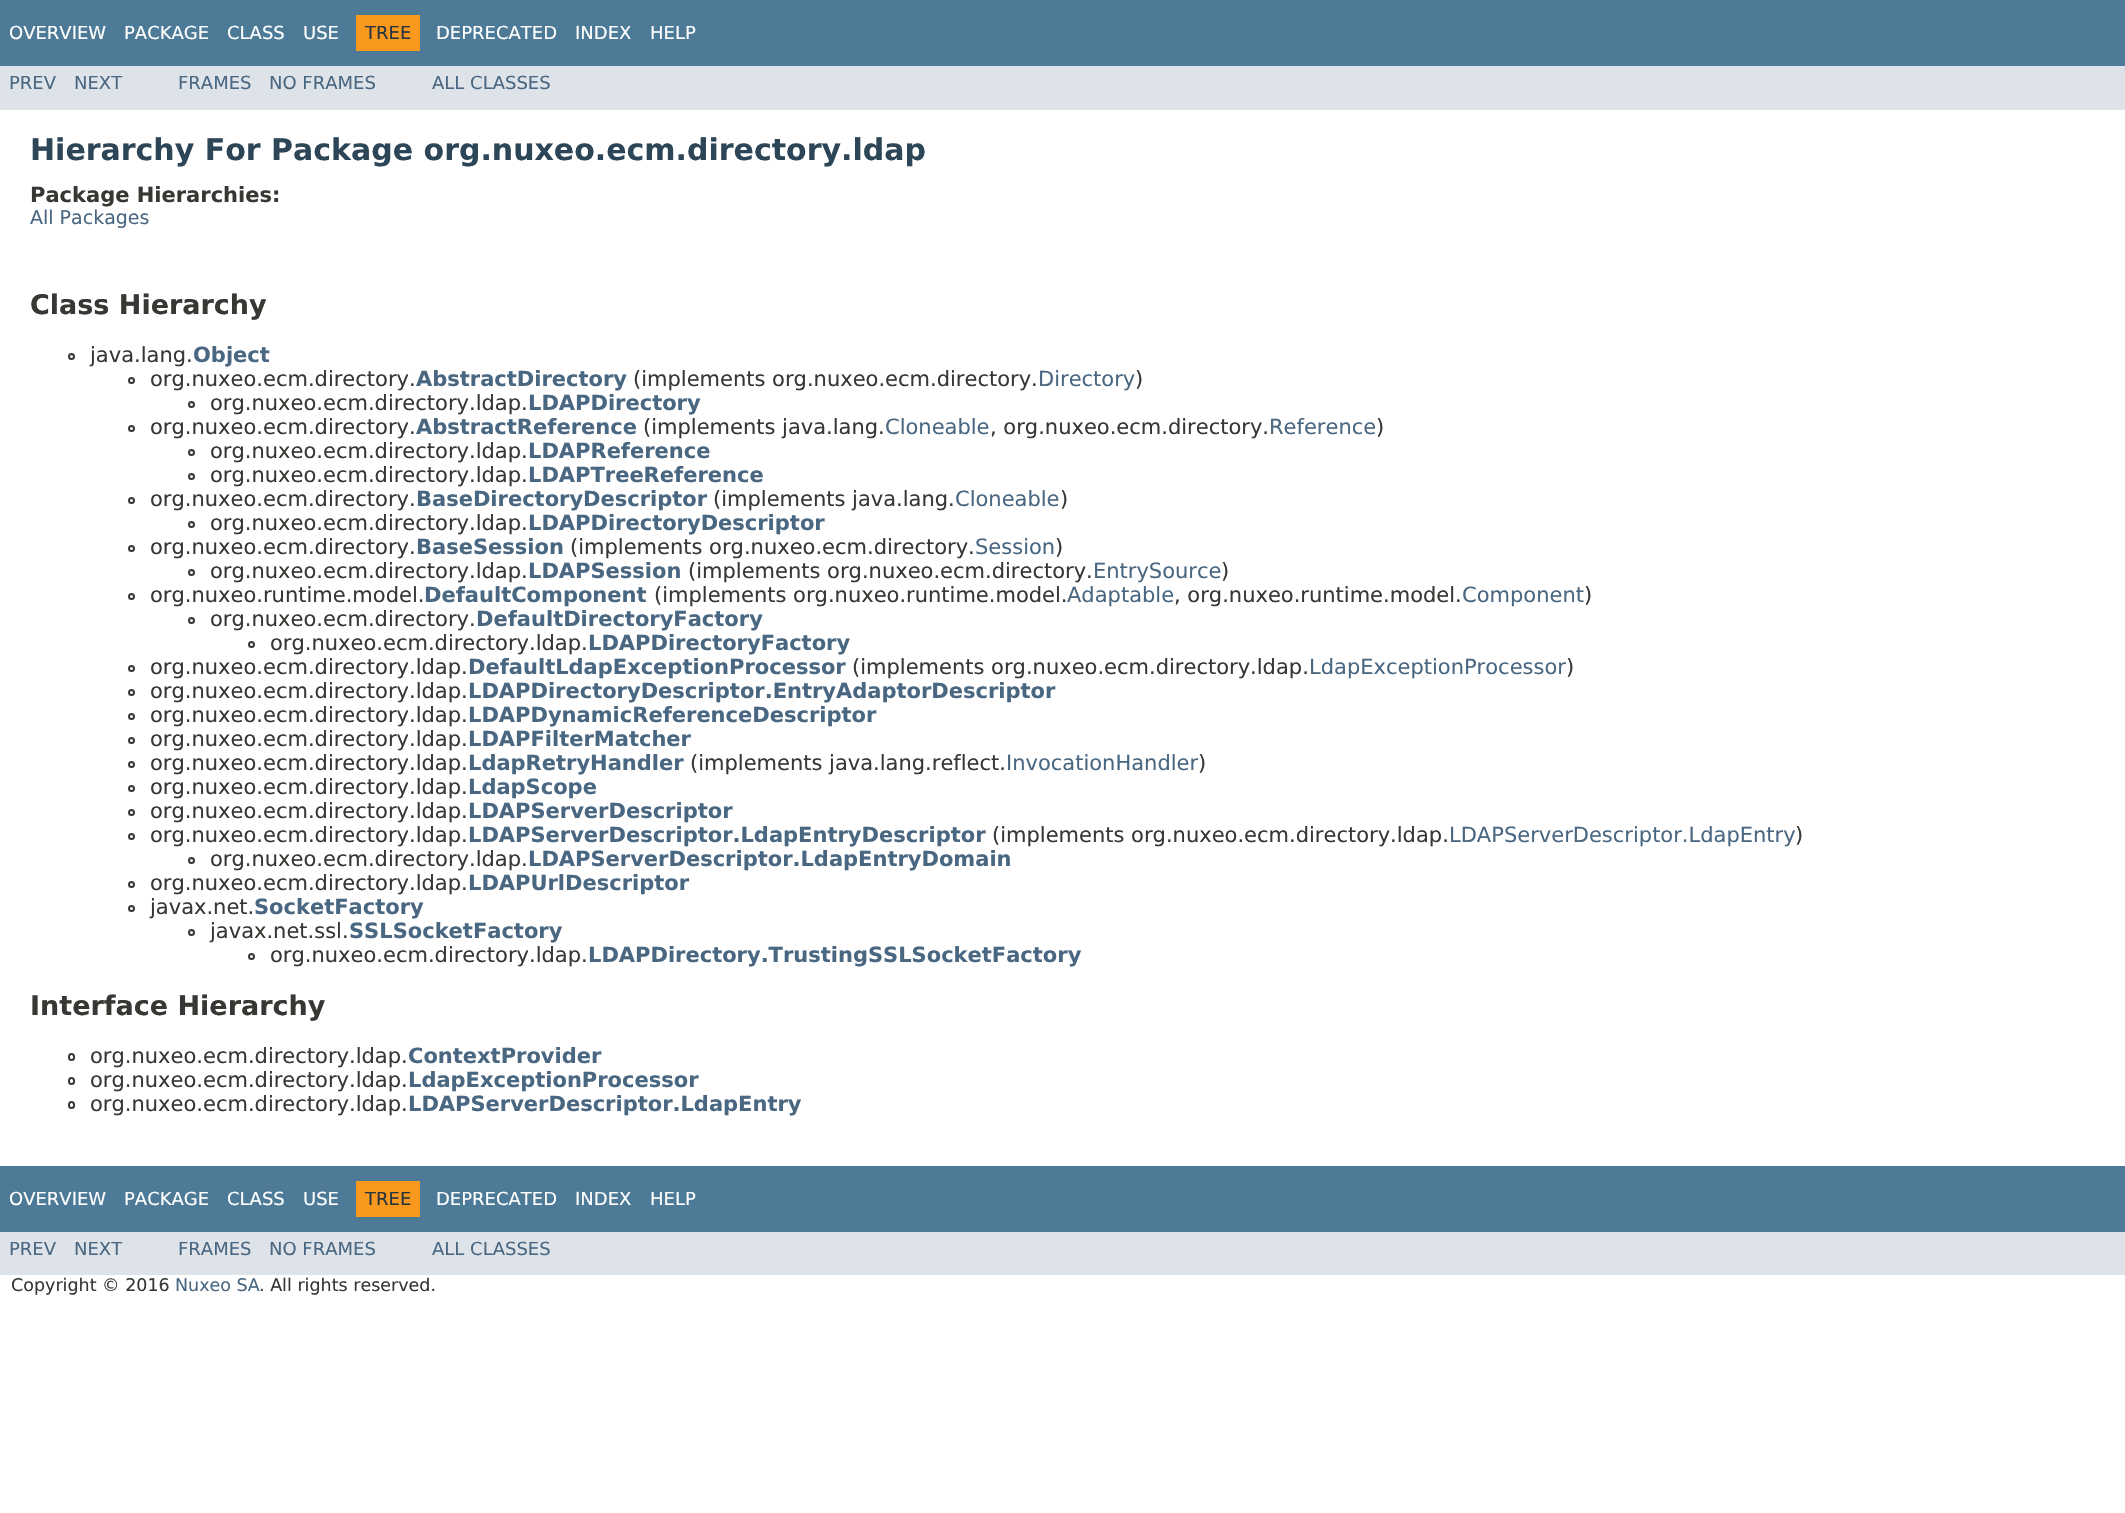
void draw(SkCanvas* canvas) {
    SkPaint paint;
    paint.setAntiAlias(true);
    canvas->clear(0xFFFFFFFF);
    paint.setColor(0xFF4D7A97);
    canvas->drawRect(SkRect::MakeXYWH(0, 0, 2125, 66), paint);
    SkFont font1(fontMgr->matchFamilyStyle("DejaVu Sans", SkFontStyle::Normal()), 18);
    font1.setSubpixel(true);
    paint.setColor(0xFFFFFFFF);
    canvas->drawString("OVERVIEW", 9, 39, font1, paint);
    canvas->drawString("PACKAGE", 124, 39, font1, paint);
    canvas->drawString("CLASS", 227, 39, font1, paint);
    canvas->drawString("USE", 303, 39, font1, paint);
    paint.setColor(0xFFF8981D);
    canvas->drawRect(SkRect::MakeXYWH(356, 15, 64, 36), paint);
    paint.setColor(0xFF253441);
    canvas->drawString("TREE", 365, 39, font1, paint);
    paint.setColor(0xFFFFFFFF);
    canvas->drawString("DEPRECATED", 436, 39, font1, paint);
    canvas->drawString("INDEX", 575, 39, font1, paint);
    canvas->drawString("HELP", 650, 39, font1, paint);
    paint.setColor(0xFFDEE3E9);
    canvas->drawRect(SkRect::MakeXYWH(0, 66, 2125, 44), paint);
    paint.setColor(0xFF4A6782);
    canvas->drawString("PREV", 9, 89, font1, paint);
    canvas->drawString("NEXT", 74, 89, font1, paint);
    canvas->drawString("FRAMES", 178, 89, font1, paint);
    canvas->drawString("NO FRAMES", 269, 89, font1, paint);
    canvas->drawString("ALL CLASSES", 432, 89, font1, paint);
    SkFont font2(fontMgr->matchFamilyStyle("DejaVu Sans", SkFontStyle::Bold()), 30);
    font2.setSubpixel(true);
    paint.setColor(0xFF2C4557);
    canvas->drawString("Hierarchy For Package org.nuxeo.ecm.directory.ldap", 30, 160, font2, paint);
    SkFont font3(fontMgr->matchFamilyStyle("DejaVu Sans", SkFontStyle::Bold()), 21);
    font3.setSubpixel(true);
    paint.setColor(0xFF353833);
    canvas->drawString("Package Hierarchies:", 30, 202, font3, paint);
    SkFont font4(fontMgr->matchFamilyStyle("DejaVu Sans", SkFontStyle::Normal()), 19);
    font4.setSubpixel(true);
    paint.setColor(0xFF4A6782);
    canvas->drawString("All Packages", 30, 224, font4, paint);
    SkFont font5(fontMgr->matchFamilyStyle("DejaVu Sans", SkFontStyle::Bold()), 27);
    font5.setSubpixel(true);
    paint.setColor(0xFF353833);
    canvas->drawString("Class Hierarchy", 30, 314, font5, paint);
    paint.setStyle(SkPaint::kStroke_Style);
    paint.setStrokeWidth(2);
    canvas->drawCircle(71.5f, 356.5f, 2.5f, paint);
    SkFont font6(fontMgr->matchFamilyStyle("DejaVu Sans", SkFontStyle::Normal()), 21);
    font6.setSubpixel(true);
    paint.setStyle(SkPaint::kFill_Style);
    canvas->drawString("java.lang.", 90, 362, font6, paint);
    paint.setColor(0xFF4A6782);
    canvas->drawString("Object", 193, 362, font3, paint);
    paint.setStyle(SkPaint::kStroke_Style);
    paint.setColor(0xFF353833);
    canvas->drawCircle(131.5f, 380.5f, 2.5f, paint);
    paint.setStyle(SkPaint::kFill_Style);
    canvas->drawString("org.nuxeo.ecm.directory.", 150, 386, font6, paint);
    paint.setColor(0xFF4A6782);
    canvas->drawString("AbstractDirectory", 416, 386, font3, paint);
    paint.setColor(0xFF353833);
    canvas->drawString("(implements org.nuxeo.ecm.directory.", 633, 386, font6, paint);
    paint.setColor(0xFF4A6782);
    canvas->drawString("Directory", 1038, 386, font6, paint);
    paint.setColor(0xFF353833);
    canvas->drawString(")", 1135, 386, font6, paint);
    paint.setStyle(SkPaint::kStroke_Style);
    canvas->drawCircle(191.5f, 404.5f, 2.5f, paint);
    paint.setStyle(SkPaint::kFill_Style);
    canvas->drawString("org.nuxeo.ecm.directory.ldap.", 210, 410, font6, paint);
    paint.setColor(0xFF4A6782);
    canvas->drawString("LDAPDirectory", 528, 410, font3, paint);
    paint.setStyle(SkPaint::kStroke_Style);
    paint.setColor(0xFF353833);
    canvas->drawCircle(131.5f, 428.5f, 2.5f, paint);
    paint.setStyle(SkPaint::kFill_Style);
    canvas->drawString("org.nuxeo.ecm.directory.", 150, 434, font6, paint);
    paint.setColor(0xFF4A6782);
    canvas->drawString("AbstractReference", 416, 434, font3, paint);
    paint.setColor(0xFF353833);
    canvas->drawString("(implements java.lang.", 643, 434, font6, paint);
    paint.setColor(0xFF4A6782);
    canvas->drawString("Cloneable", 885, 434, font6, paint);
    paint.setColor(0xFF353833);
    canvas->drawString(", org.nuxeo.ecm.directory.", 990, 434, font6, paint);
    paint.setColor(0xFF4A6782);
    canvas->drawString("Reference", 1269, 434, font6, paint);
    paint.setColor(0xFF353833);
    canvas->drawString(")", 1376, 434, font6, paint);
    paint.setStyle(SkPaint::kStroke_Style);
    canvas->drawCircle(191.5f, 452.5f, 2.5f, paint);
    paint.setStyle(SkPaint::kFill_Style);
    canvas->drawString("org.nuxeo.ecm.directory.ldap.", 210, 458, font6, paint);
    paint.setColor(0xFF4A6782);
    canvas->drawString("LDAPReference", 528, 458, font3, paint);
    paint.setStyle(SkPaint::kStroke_Style);
    paint.setColor(0xFF353833);
    canvas->drawCircle(191.5f, 476.5f, 2.5f, paint);
    paint.setStyle(SkPaint::kFill_Style);
    canvas->drawString("org.nuxeo.ecm.directory.ldap.", 210, 482, font6, paint);
    paint.setColor(0xFF4A6782);
    canvas->drawString("LDAPTreeReference", 528, 482, font3, paint);
    paint.setStyle(SkPaint::kStroke_Style);
    paint.setColor(0xFF353833);
    canvas->drawCircle(131.5f, 500.5f, 2.5f, paint);
    paint.setStyle(SkPaint::kFill_Style);
    canvas->drawString("org.nuxeo.ecm.directory.", 150, 506, font6, paint);
    paint.setColor(0xFF4A6782);
    canvas->drawString("BaseDirectoryDescriptor", 416, 506, font3, paint);
    paint.setColor(0xFF353833);
    canvas->drawString("(implements java.lang.", 713, 506, font6, paint);
    paint.setColor(0xFF4A6782);
    canvas->drawString("Cloneable", 955, 506, font6, paint);
    paint.setColor(0xFF353833);
    canvas->drawString(")", 1060, 506, font6, paint);
    paint.setStyle(SkPaint::kStroke_Style);
    canvas->drawCircle(191.5f, 524.5f, 2.5f, paint);
    paint.setStyle(SkPaint::kFill_Style);
    canvas->drawString("org.nuxeo.ecm.directory.ldap.", 210, 530, font6, paint);
    paint.setColor(0xFF4A6782);
    canvas->drawString("LDAPDirectoryDescriptor", 528, 530, font3, paint);
    paint.setStyle(SkPaint::kStroke_Style);
    paint.setColor(0xFF353833);
    canvas->drawCircle(131.5f, 548.5f, 2.5f, paint);
    paint.setStyle(SkPaint::kFill_Style);
    canvas->drawString("org.nuxeo.ecm.directory.", 150, 554, font6, paint);
    paint.setColor(0xFF4A6782);
    canvas->drawString("BaseSession", 416, 554, font3, paint);
    paint.setColor(0xFF353833);
    canvas->drawString("(implements org.nuxeo.ecm.directory.", 570, 554, font6, paint);
    paint.setColor(0xFF4A6782);
    canvas->drawString("Session", 975, 554, font6, paint);
    paint.setColor(0xFF353833);
    canvas->drawString(")", 1055, 554, font6, paint);
    paint.setStyle(SkPaint::kStroke_Style);
    canvas->drawCircle(191.5f, 572.5f, 2.5f, paint);
    paint.setStyle(SkPaint::kFill_Style);
    canvas->drawString("org.nuxeo.ecm.directory.ldap.", 210, 578, font6, paint);
    paint.setColor(0xFF4A6782);
    canvas->drawString("LDAPSession", 528, 578, font3, paint);
    paint.setColor(0xFF353833);
    canvas->drawString("(implements org.nuxeo.ecm.directory.", 688, 578, font6, paint);
    paint.setColor(0xFF4A6782);
    canvas->drawString("EntrySource", 1093, 578, font6, paint);
    paint.setColor(0xFF353833);
    canvas->drawString(")", 1221, 578, font6, paint);
    paint.setStyle(SkPaint::kStroke_Style);
    canvas->drawCircle(131.5f, 596.5f, 2.5f, paint);
    paint.setStyle(SkPaint::kFill_Style);
    canvas->drawString("org.nuxeo.runtime.model.", 150, 602, font6, paint);
    paint.setColor(0xFF4A6782);
    canvas->drawString("DefaultComponent", 424, 602, font3, paint);
    paint.setColor(0xFF353833);
    canvas->drawString("(implements org.nuxeo.runtime.model.", 654, 602, font6, paint);
    paint.setColor(0xFF4A6782);
    canvas->drawString("Adaptable", 1067, 602, font6, paint);
    paint.setColor(0xFF353833);
    canvas->drawString(", org.nuxeo.runtime.model.", 1174, 602, font6, paint);
    paint.setColor(0xFF4A6782);
    canvas->drawString("Component", 1462, 602, font6, paint);
    paint.setColor(0xFF353833);
    canvas->drawString(")", 1584, 602, font6, paint);
    paint.setStyle(SkPaint::kStroke_Style);
    canvas->drawCircle(191.5f, 620.5f, 2.5f, paint);
    paint.setStyle(SkPaint::kFill_Style);
    canvas->drawString("org.nuxeo.ecm.directory.", 210, 626, font6, paint);
    paint.setColor(0xFF4A6782);
    canvas->drawString("DefaultDirectoryFactory", 476, 626, font3, paint);
    paint.setStyle(SkPaint::kStroke_Style);
    paint.setColor(0xFF353833);
    canvas->drawCircle(251.5f, 644.5f, 2.5f, paint);
    paint.setStyle(SkPaint::kFill_Style);
    canvas->drawString("org.nuxeo.ecm.directory.ldap.", 270, 650, font6, paint);
    paint.setColor(0xFF4A6782);
    canvas->drawString("LDAPDirectoryFactory", 588, 650, font3, paint);
    paint.setStyle(SkPaint::kStroke_Style);
    paint.setColor(0xFF353833);
    canvas->drawCircle(131.5f, 668.5f, 2.5f, paint);
    paint.setStyle(SkPaint::kFill_Style);
    canvas->drawString("org.nuxeo.ecm.directory.ldap.", 150, 674, font6, paint);
    paint.setColor(0xFF4A6782);
    canvas->drawString("DefaultLdapExceptionProcessor", 468, 674, font3, paint);
    paint.setColor(0xFF353833);
    canvas->drawString("(implements org.nuxeo.ecm.directory.ldap.", 852, 674, font6, paint);
    paint.setColor(0xFF4A6782);
    canvas->drawString("LdapExceptionProcessor", 1309, 674, font6, paint);
    paint.setColor(0xFF353833);
    canvas->drawString(")", 1566, 674, font6, paint);
    paint.setStyle(SkPaint::kStroke_Style);
    canvas->drawCircle(131.5f, 692.5f, 2.5f, paint);
    paint.setStyle(SkPaint::kFill_Style);
    canvas->drawString("org.nuxeo.ecm.directory.ldap.", 150, 698, font6, paint);
    paint.setColor(0xFF4A6782);
    canvas->drawString("LDAPDirectoryDescriptor.EntryAdaptorDescriptor", 468, 698, font3, paint);
    paint.setStyle(SkPaint::kStroke_Style);
    paint.setColor(0xFF353833);
    canvas->drawCircle(131.5f, 716.5f, 2.5f, paint);
    paint.setStyle(SkPaint::kFill_Style);
    canvas->drawString("org.nuxeo.ecm.directory.ldap.", 150, 722, font6, paint);
    paint.setColor(0xFF4A6782);
    canvas->drawString("LDAPDynamicReferenceDescriptor", 468, 722, font3, paint);
    paint.setStyle(SkPaint::kStroke_Style);
    paint.setColor(0xFF353833);
    canvas->drawCircle(131.5f, 740.5f, 2.5f, paint);
    paint.setStyle(SkPaint::kFill_Style);
    canvas->drawString("org.nuxeo.ecm.directory.ldap.", 150, 746, font6, paint);
    paint.setColor(0xFF4A6782);
    canvas->drawString("LDAPFilterMatcher", 468, 746, font3, paint);
    paint.setStyle(SkPaint::kStroke_Style);
    paint.setColor(0xFF353833);
    canvas->drawCircle(131.5f, 764.5f, 2.5f, paint);
    paint.setStyle(SkPaint::kFill_Style);
    canvas->drawString("org.nuxeo.ecm.directory.ldap.", 150, 770, font6, paint);
    paint.setColor(0xFF4A6782);
    canvas->drawString("LdapRetryHandler", 468, 770, font3, paint);
    paint.setColor(0xFF353833);
    canvas->drawString("(implements java.lang.reflect.", 690, 770, font6, paint);
    paint.setColor(0xFF4A6782);
    canvas->drawString("InvocationHandler", 1006, 770, font6, paint);
    paint.setColor(0xFF353833);
    canvas->drawString(")", 1198, 770, font6, paint);
    paint.setStyle(SkPaint::kStroke_Style);
    canvas->drawCircle(131.5f, 788.5f, 2.5f, paint);
    paint.setStyle(SkPaint::kFill_Style);
    canvas->drawString("org.nuxeo.ecm.directory.ldap.", 150, 794, font6, paint);
    paint.setColor(0xFF4A6782);
    canvas->drawString("LdapScope", 468, 794, font3, paint);
    paint.setStyle(SkPaint::kStroke_Style);
    paint.setColor(0xFF353833);
    canvas->drawCircle(131.5f, 812.5f, 2.5f, paint);
    paint.setStyle(SkPaint::kFill_Style);
    canvas->drawString("org.nuxeo.ecm.directory.ldap.", 150, 818, font6, paint);
    paint.setColor(0xFF4A6782);
    canvas->drawString("LDAPServerDescriptor", 468, 818, font3, paint);
    paint.setStyle(SkPaint::kStroke_Style);
    paint.setColor(0xFF353833);
    canvas->drawCircle(131.5f, 836.5f, 2.5f, paint);
    paint.setStyle(SkPaint::kFill_Style);
    canvas->drawString("org.nuxeo.ecm.directory.ldap.", 150, 842, font6, paint);
    paint.setColor(0xFF4A6782);
    canvas->drawString("LDAPServerDescriptor.LdapEntryDescriptor", 468, 842, font3, paint);
    paint.setColor(0xFF353833);
    canvas->drawString("(implements org.nuxeo.ecm.directory.ldap.", 992, 842, font6, paint);
    paint.setColor(0xFF4A6782);
    canvas->drawString("LDAPServerDescriptor.LdapEntry", 1449, 842, font6, paint);
    paint.setColor(0xFF353833);
    canvas->drawString(")", 1795, 842, font6, paint);
    paint.setStyle(SkPaint::kStroke_Style);
    canvas->drawCircle(191.5f, 860.5f, 2.5f, paint);
    paint.setStyle(SkPaint::kFill_Style);
    canvas->drawString("org.nuxeo.ecm.directory.ldap.", 210, 866, font6, paint);
    paint.setColor(0xFF4A6782);
    canvas->drawString("LDAPServerDescriptor.LdapEntryDomain", 528, 866, font3, paint);
    paint.setStyle(SkPaint::kStroke_Style);
    paint.setColor(0xFF353833);
    canvas->drawCircle(131.5f, 884.5f, 2.5f, paint);
    paint.setStyle(SkPaint::kFill_Style);
    canvas->drawString("org.nuxeo.ecm.directory.ldap.", 150, 890, font6, paint);
    paint.setColor(0xFF4A6782);
    canvas->drawString("LDAPUrlDescriptor", 468, 890, font3, paint);
    paint.setStyle(SkPaint::kStroke_Style);
    paint.setColor(0xFF353833);
    canvas->drawCircle(131.5f, 908.5f, 2.5f, paint);
    paint.setStyle(SkPaint::kFill_Style);
    canvas->drawString("javax.net.", 150, 914, font6, paint);
    paint.setColor(0xFF4A6782);
    canvas->drawString("SocketFactory", 254, 914, font3, paint);
    paint.setStyle(SkPaint::kStroke_Style);
    paint.setColor(0xFF353833);
    canvas->drawCircle(191.5f, 932.5f, 2.5f, paint);
    paint.setStyle(SkPaint::kFill_Style);
    canvas->drawString("javax.net.ssl.", 210, 938, font6, paint);
    paint.setColor(0xFF4A6782);
    canvas->drawString("SSLSocketFactory", 349, 938, font3, paint);
    paint.setStyle(SkPaint::kStroke_Style);
    paint.setColor(0xFF353833);
    canvas->drawCircle(251.5f, 956.5f, 2.5f, paint);
    paint.setStyle(SkPaint::kFill_Style);
    canvas->drawString("org.nuxeo.ecm.directory.ldap.", 270, 962, font6, paint);
    paint.setColor(0xFF4A6782);
    canvas->drawString("LDAPDirectory.TrustingSSLSocketFactory", 588, 962, font3, paint);
    paint.setColor(0xFF353833);
    canvas->drawString("Interface Hierarchy", 30, 1015, font5, paint);
    paint.setStyle(SkPaint::kStroke_Style);
    canvas->drawRoundRect(SkRect::MakeXYWH(69, 1054, 5, 6), 2.5f, 2.5f, paint);
    paint.setStyle(SkPaint::kFill_Style);
    canvas->drawString("org.nuxeo.ecm.directory.ldap.", 90, 1063, font6, paint);
    paint.setColor(0xFF4A6782);
    canvas->drawString("ContextProvider", 408, 1063, font3, paint);
    paint.setStyle(SkPaint::kStroke_Style);
    paint.setColor(0xFF353833);
    canvas->drawRoundRect(SkRect::MakeXYWH(69, 1078, 5, 6), 2.5f, 2.5f, paint);
    paint.setStyle(SkPaint::kFill_Style);
    canvas->drawString("org.nuxeo.ecm.directory.ldap.", 90, 1087, font6, paint);
    paint.setColor(0xFF4A6782);
    canvas->drawString("LdapExceptionProcessor", 408, 1087, font3, paint);
    paint.setStyle(SkPaint::kStroke_Style);
    paint.setColor(0xFF353833);
    canvas->drawRoundRect(SkRect::MakeXYWH(69, 1102, 5, 6), 2.5f, 2.5f, paint);
    paint.setStyle(SkPaint::kFill_Style);
    canvas->drawString("org.nuxeo.ecm.directory.ldap.", 90, 1111, font6, paint);
    paint.setColor(0xFF4A6782);
    canvas->drawString("LDAPServerDescriptor.LdapEntry", 408, 1111, font3, paint);
    paint.setColor(0xFF4D7A97);
    canvas->drawRect(SkRect::MakeXYWH(0, 1166, 2125, 66), paint);
    paint.setColor(0xFFFFFFFF);
    canvas->drawString("OVERVIEW", 9, 1205, font1, paint);
    canvas->drawString("PACKAGE", 124, 1205, font1, paint);
    canvas->drawString("CLASS", 227, 1205, font1, paint);
    canvas->drawString("USE", 303, 1205, font1, paint);
    paint.setColor(0xFFF8981D);
    canvas->drawRect(SkRect::MakeXYWH(356, 1181, 64, 36), paint);
    paint.setColor(0xFF253441);
    canvas->drawString("TREE", 365, 1205, font1, paint);
    paint.setColor(0xFFFFFFFF);
    canvas->drawString("DEPRECATED", 436, 1205, font1, paint);
    canvas->drawString("INDEX", 575, 1205, font1, paint);
    canvas->drawString("HELP", 650, 1205, font1, paint);
    paint.setColor(0xFFDEE3E9);
    canvas->drawRect(SkRect::MakeXYWH(0, 1232, 2125, 43), paint);
    paint.setColor(0xFF4A6782);
    canvas->drawString("PREV", 9, 1255, font1, paint);
    canvas->drawString("NEXT", 74, 1255, font1, paint);
    canvas->drawString("FRAMES", 178, 1255, font1, paint);
    canvas->drawString("NO FRAMES", 269, 1255, font1, paint);
    canvas->drawString("ALL CLASSES", 432, 1255, font1, paint);
    SkFont font7(fontMgr->matchFamilyStyle("DejaVu Sans", SkFontStyle::Normal()), 17.5f);
    font7.setSubpixel(true);
    paint.setColor(0xFF353833);
    canvas->drawString("Copyright © 2016", 11, 1291, font7, paint);
    paint.setColor(0xFF4A6782);
    canvas->drawString("Nuxeo SA", 175, 1291, font7, paint);
    paint.setColor(0xFF353833);
    canvas->drawString(". All rights reserved.", 259, 1291, font7, paint);
}
